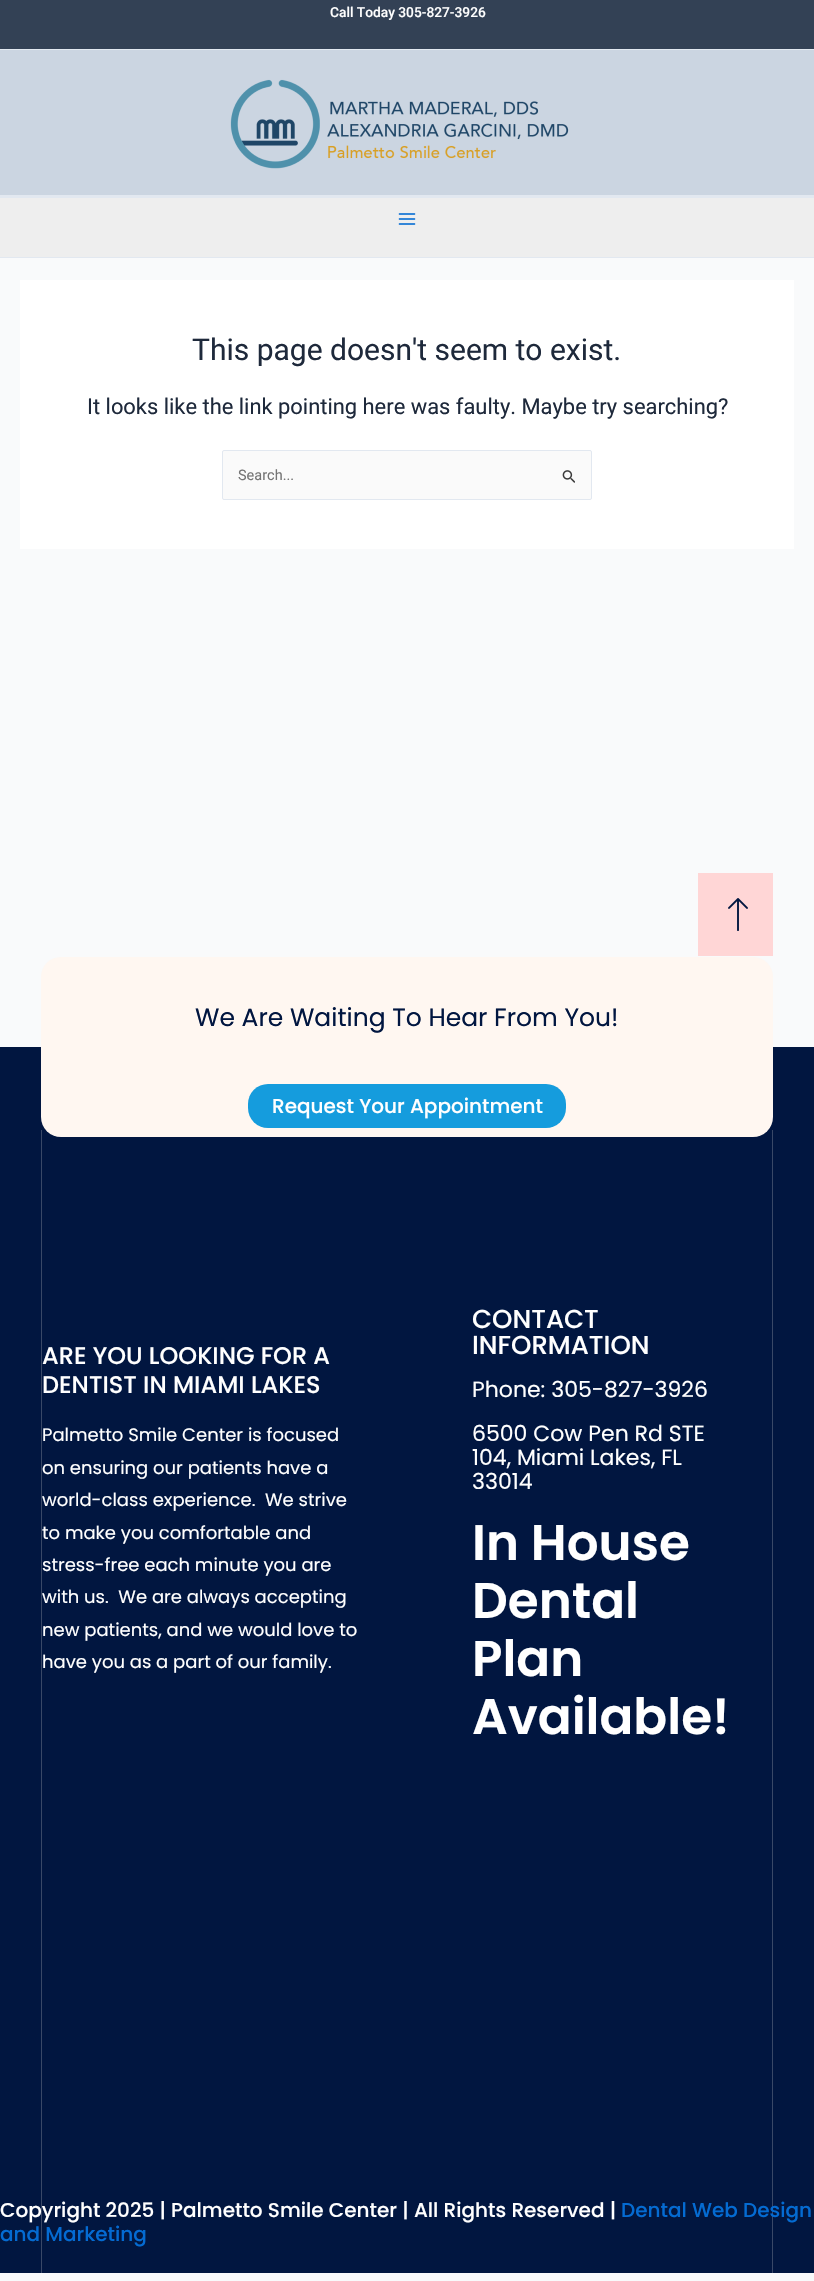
void draw(SkCanvas* canvas) {
    SkPaint paint;
    paint.setAntiAlias(true);
    canvas->clear(0xFFF9FAFB);
    paint.setColor(0xFF334155);
    canvas->drawRect(SkRect::MakeXYWH(0, 0, 814, 49), paint);
    paint.setColor(0xFFE2E8F0);
    canvas->drawRect(SkRect::MakeXYWH(0, 49, 814, 1), paint);
    SkFont font1(fontMgr->matchFamilyStyle("Roboto", SkFontStyle(500, SkFontStyle::kNormal_Width, SkFontStyle::kUpright_Slant)), 13.75f);
    font1.setSubpixel(true);
    paint.setColor(0xFFFFFFFF);
    canvas->drawString("Call Today 305-827-3926", 330, 17, font1, paint);
    paint.setColor(0xFFCBD5E1);
    canvas->drawRect(SkRect::MakeXYWH(0, 50, 814, 145), paint);
    paint.setColor(0xFFE2E8F0);
    canvas->drawRect(SkRect::MakeXYWH(0, 195, 814, 3), paint);
    canvas->drawImageRect(SkImages::DeferredFromEncodedData(SkData::MakeFromFileName("img1.png")), SkRect::MakeXYWH(230, 79, 339, 90), SkSamplingOptions());
    paint.setColor(0xFFEEEEEE);
    canvas->drawRect(SkRect::MakeXYWH(0, 198, 814, 59), paint);
    paint.setColor(0xFFE2E8F0);
    canvas->drawRect(SkRect::MakeXYWH(0, 257, 814, 1), paint);
    canvas->drawImageRect(SkImages::DeferredFromEncodedData(SkData::MakeFromFileName("img2.png")), SkRect::MakeXYWH(398, 213, 18, 12), SkSamplingOptions());
    paint.setColor(0xFFFFFFFF);
    canvas->drawRect(SkRect::MakeXYWH(20, 280, 774, 269), paint);
    SkFont font2(fontMgr->matchFamilyStyle("Roboto", SkFontStyle::Normal()), 30);
    font2.setSubpixel(true);
    paint.setColor(0xFF1E293B);
    canvas->drawString("This page doesn't seem to exist.", 192, 360, font2, paint);
    SkFont font3(fontMgr->matchFamilyStyle("Roboto", SkFontStyle::Normal()), 21.9f);
    font3.setSubpixel(true);
    canvas->drawString("It looks like the link pointing here was faulty. Maybe try searching?", 87, 414, font3, paint);
    paint.setColor(0xFFFAFAFA);
    canvas->drawRoundRect(SkRect::MakeXYWH(222.5f, 450.5f, 369, 49), 1.5f, 1.5f, paint);
    paint.setStyle(SkPaint::kStroke_Style);
    paint.setStrokeWidth(1);
    paint.setColor(0xFFE2E8F0);
    canvas->drawRoundRect(SkRect::MakeXYWH(222.5f, 450.5f, 369, 49), 1.5f, 1.5f, paint);
    SkFont font4(fontMgr->matchFamilyStyle("Roboto", SkFontStyle::Normal()), 14.5f);
    font4.setSubpixel(true);
    paint.setStyle(SkPaint::kFill_Style);
    paint.setColor(0xFF757575);
    canvas->drawString("Search...", 238, 480, font4, paint);
    canvas->drawImageRect(SkImages::DeferredFromEncodedData(SkData::MakeFromFileName("img3.png")), SkRect::MakeXYWH(562, 470, 13, 13), SkSamplingOptions());
    paint.setColor(0xFFFFD6D6);
    canvas->drawRect(SkRect::MakeXYWH(698, 873, 75, 83), paint);
    canvas->drawImageRect(SkImages::DeferredFromEncodedData(SkData::MakeFromFileName("img4.png")), SkRect::MakeXYWH(728, 898, 20, 33), SkSamplingOptions());
    paint.setColor(0xFF011640);
    canvas->drawRect(SkRect::MakeXYWH(0, 1047, 814, 1226), paint);
    paint.setColor(0xFF394867);
    canvas->drawRect(SkRect::MakeXYWH(772, 1130, 1, 1143), paint);
    canvas->drawRect(SkRect::MakeXYWH(41, 1130, 1, 1143), paint);
    paint.setColor(0xFFFFF7F1);
    canvas->drawRoundRect(SkRect::MakeXYWH(41, 957, 732, 180), 20, 20, paint);
    SkFont font5(fontMgr->matchFamilyStyle("Poppins", SkFontStyle::Normal()), 25);
    font5.setSubpixel(true);
    paint.setColor(0xFF011640);
    canvas->drawString("We Are Waiting To Hear From You!", 195, 1026, font5, paint);
    paint.setColor(0xFF159CDD);
    canvas->drawRoundRect(SkRect::MakeXYWH(248, 1084, 318, 44), 20, 20, paint);
    SkFont font6(fontMgr->matchFamilyStyle("Poppins", SkFontStyle(500, SkFontStyle::kNormal_Width, SkFontStyle::kUpright_Slant)), 20);
    font6.setSubpixel(true);
    paint.setColor(0xFFFFFFFF);
    canvas->drawString("Request Your Appointment", 272, 1113, font6, paint);
    SkFont font7(fontMgr->matchFamilyStyle("Poppins", SkFontStyle(500, SkFontStyle::kNormal_Width, SkFontStyle::kUpright_Slant)), 24);
    font7.setSubpixel(true);
    canvas->drawString("ARE YOU LOOKING FOR A", 42, 1364, font7, paint);
    canvas->drawString("DENTIST IN MIAMI LAKES", 42, 1393, font7, paint);
    SkFont font8(fontMgr->matchFamilyStyle("Poppins", SkFontStyle::Normal()), 18);
    font8.setSubpixel(true);
    canvas->drawString("Palmetto Smile Center is focused", 42, 1441, font8, paint);
    canvas->drawString("on ensuring our patients have a", 42, 1474, font8, paint);
    canvas->drawString("world-class experience.  We strive", 42, 1506, font8, paint);
    canvas->drawString("to make you comfortable and", 42, 1539, font8, paint);
    canvas->drawString("stress-free each minute you are", 42, 1571, font8, paint);
    canvas->drawString("with us.  We are always accepting", 42, 1603, font8, paint);
    canvas->drawString("new patients, and we would love to", 42, 1636, font8, paint);
    canvas->drawString("have you as a part of our family.", 42, 1668, font8, paint);
    SkFont font9(fontMgr->matchFamilyStyle("Poppins", SkFontStyle(500, SkFontStyle::kNormal_Width, SkFontStyle::kUpright_Slant)), 26);
    font9.setSubpixel(true);
    canvas->drawString("CONTACT", 472, 1328, font9, paint);
    canvas->drawString("INFORMATION", 472, 1354, font9, paint);
    SkFont font10(fontMgr->matchFamilyStyle("Poppins", SkFontStyle::Normal()), 22);
    font10.setSubpixel(true);
    canvas->drawString("Phone: 305-827-3926", 472, 1397, font10, paint);
    canvas->drawString("6500 Cow Pen Rd STE", 472, 1441, font10, paint);
    canvas->drawString("104, Miami Lakes, FL", 472, 1465, font10, paint);
    canvas->drawString("33014", 472, 1489, font10, paint);
    SkFont font11(fontMgr->matchFamilyStyle("Poppins", SkFontStyle(600, SkFontStyle::kNormal_Width, SkFontStyle::kUpright_Slant)), 50);
    font11.setSubpixel(true);
    canvas->drawString("In House", 472, 1560, font11, paint);
    canvas->drawString("Dental", 472, 1618, font11, paint);
    canvas->drawString("Plan", 472, 1676, font11, paint);
    canvas->drawString("Available!", 472, 1734, font11, paint);
    canvas->drawString("Copyright 2025 | Palmetto Smile Center | All Rights Reserved |", 0, 2217, font6, paint);
    paint.setColor(0xFF046BD2);
    canvas->drawString("Dental Web Design", 621, 2217, font6, paint);
    canvas->drawString("and Marketing", 0, 2241, font6, paint);
}
